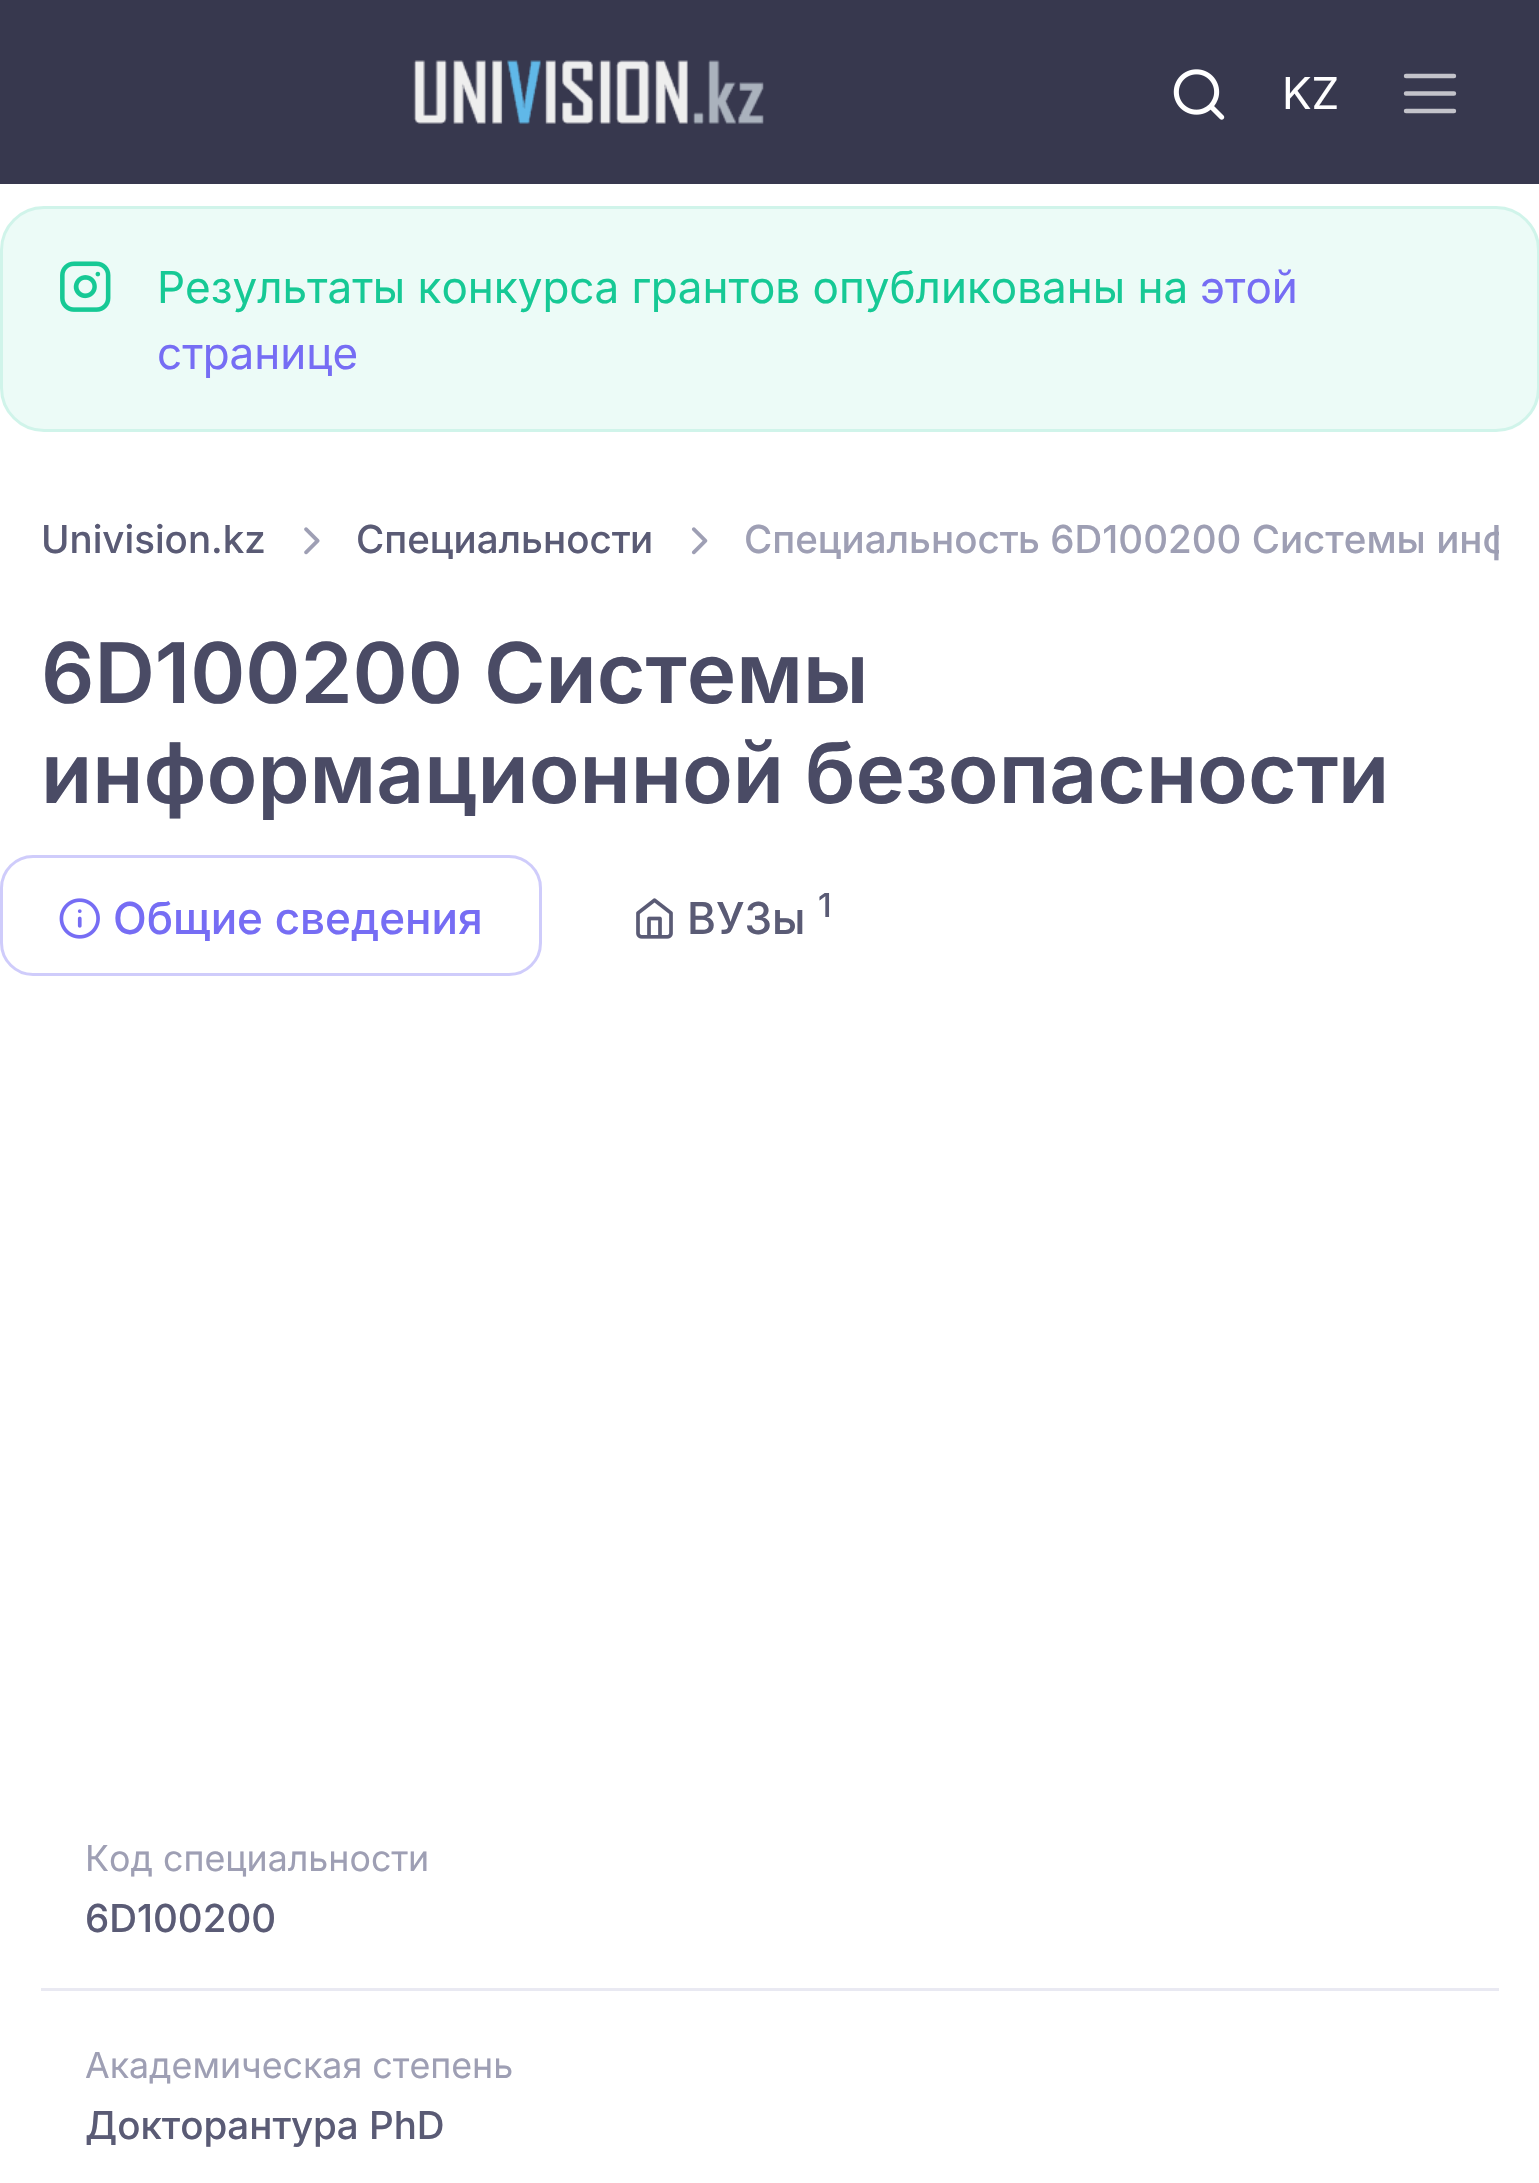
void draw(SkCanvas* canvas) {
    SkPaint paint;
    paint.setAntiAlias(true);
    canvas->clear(0xFFFFFFFF);
    paint.setColor(0xFF37384E);
    canvas->drawRect(SkRect::MakeXYWH(0, 0, 1539, 184), paint);
    canvas->drawImageRect(SkImages::DeferredFromEncodedData(SkData::MakeFromFileName("img1.png")), SkRect::MakeXYWH(413, 60, 351, 64), SkSamplingOptions());
    canvas->drawImageRect(SkImages::DeferredFromEncodedData(SkData::MakeFromFileName("img2.png")), SkRect::MakeXYWH(1173, 69, 52, 51), SkSamplingOptions());
    SkFont font1(fontMgr->matchFamilyStyle("Inter", SkFontStyle::Normal()), 44);
    font1.setSubpixel(true);
    paint.setColor(0xFFFFFFFF);
    canvas->drawString("KZ", 1282, 109, font1, paint);
    paint.setStyle(SkPaint::kStroke_Style);
    paint.setStrokeWidth(4.4f);
    paint.setStrokeCap(SkPaint::kRound_Cap);
    paint.setColor(0xFFC3C3CA);
    canvas->drawPath(SkPathBuilder().moveTo(1406, 76).lineTo(1454, 76).moveTo(1406, 93.5f).lineTo(1454, 93.5f).moveTo(1406, 111).lineTo(1454, 111).detach(), paint);
    paint.setStyle(SkPaint::kFill_Style);
    paint.setColor(0xFFECFBF7);
    canvas->drawRoundRect(SkRect::MakeXYWH(1.5f, 207.5f, 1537, 223), 42.5f, 42.5f, paint);
    paint.setStyle(SkPaint::kStroke_Style);
    paint.setStrokeWidth(3);
    paint.setStrokeCap(SkPaint::kButt_Cap);
    paint.setColor(0xFFD0F4EA);
    canvas->drawRoundRect(SkRect::MakeXYWH(1.5f, 207.5f, 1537, 223), 42.5f, 42.5f, paint);
    canvas->drawImageRect(SkImages::DeferredFromEncodedData(SkData::MakeFromFileName("img3.png")), SkRect::MakeXYWH(60, 261, 51, 51), SkSamplingOptions());
    paint.setStyle(SkPaint::kFill_Style);
    paint.setColor(0xFF16C995);
    canvas->drawString("Результаты конкурса грантов опубликованы на", 157, 303, font1, paint);
    paint.setColor(0xFF766DF4);
    canvas->drawString("этой", 1200, 303, font1, paint);
    canvas->drawString("странице", 157, 369, font1, paint);
    SkFont font2(fontMgr->matchFamilyStyle("Inter", SkFontStyle(500, SkFontStyle::kNormal_Width, SkFontStyle::kUpright_Slant)), 38.5f);
    font2.setSubpixel(true);
    paint.setColor(0xFF5A5B75);
    canvas->drawString("Univision.kz", 41, 553, font2, paint);
    canvas->drawImageRect(SkImages::DeferredFromEncodedData(SkData::MakeFromFileName("img4.png")), SkRect::MakeXYWH(304, 527, 16, 28), SkSamplingOptions());
    canvas->drawString("Специальности", 356, 553, font2, paint);
    canvas->drawImageRect(SkImages::DeferredFromEncodedData(SkData::MakeFromFileName("img5.png")), SkRect::MakeXYWH(691, 527, 17, 28), SkSamplingOptions());
    canvas->save();
    canvas->clipRect(SkRect::MakeXYWH(41, 498, 1458, 104));
    paint.setColor(0xFF9E9FB4);
    canvas->drawString("Специальность 6D100200 Системы инф", 744, 553, font2, paint);
    canvas->restore();
    SkFont font3(fontMgr->matchFamilyStyle("Inter", SkFontStyle(600, SkFontStyle::kNormal_Width, SkFontStyle::kUpright_Slant)), 83.6f);
    font3.setSubpixel(true);
    paint.setColor(0xFF4A4B65);
    canvas->drawString("6D100200 Системы", 41, 703, font3, paint);
    canvas->drawString("информационной безопасности", 41, 803, font3, paint);
    paint.setStyle(SkPaint::kStroke_Style);
    paint.setColor(0xFFCFCCFB);
    canvas->drawRoundRect(SkRect::MakeXYWH(1.5f, 856.5f, 539, 118), 31.5f, 31.5f, paint);
    canvas->drawImageRect(SkImages::DeferredFromEncodedData(SkData::MakeFromFileName("img6.png")), SkRect::MakeXYWH(59, 898, 41, 41), SkSamplingOptions());
    SkFont font4(fontMgr->matchFamilyStyle("Inter", SkFontStyle(500, SkFontStyle::kNormal_Width, SkFontStyle::kUpright_Slant)), 44);
    font4.setSubpixel(true);
    paint.setStyle(SkPaint::kFill_Style);
    paint.setColor(0xFF766DF4);
    canvas->drawString("Общие сведения", 113, 934, font4, paint);
    canvas->drawImageRect(SkImages::DeferredFromEncodedData(SkData::MakeFromFileName("img7.png")), SkRect::MakeXYWH(636, 898, 37, 41), SkSamplingOptions());
    paint.setColor(0xFF5A5B75);
    canvas->drawString("ВУЗы", 687, 934, font4, paint);
    SkFont font5(fontMgr->matchFamilyStyle("Inter", SkFontStyle(500, SkFontStyle::kNormal_Width, SkFontStyle::kUpright_Slant)), 33);
    font5.setSubpixel(true);
    canvas->drawString("1", 818, 917, font5, paint);
    paint.setColor(0xFFE9E9F2);
    canvas->drawRect(SkRect::MakeXYWH(41, 1988, 1458, 3), paint);
    SkFont font6(fontMgr->matchFamilyStyle("Inter", SkFontStyle::Normal()), 35.75f);
    font6.setSubpixel(true);
    paint.setColor(0xFF9E9FB4);
    canvas->drawString("Код специальности", 85, 1871, font6, paint);
    paint.setColor(0xFF5A5B75);
    canvas->drawString("6D100200", 85, 1932, font2, paint);
    paint.setColor(0xFF9E9FB4);
    canvas->drawString("Академическая степень", 85, 2078, font6, paint);
    paint.setColor(0xFF5A5B75);
    canvas->drawString("Докторантура PhD", 85, 2139, font2, paint);
}
